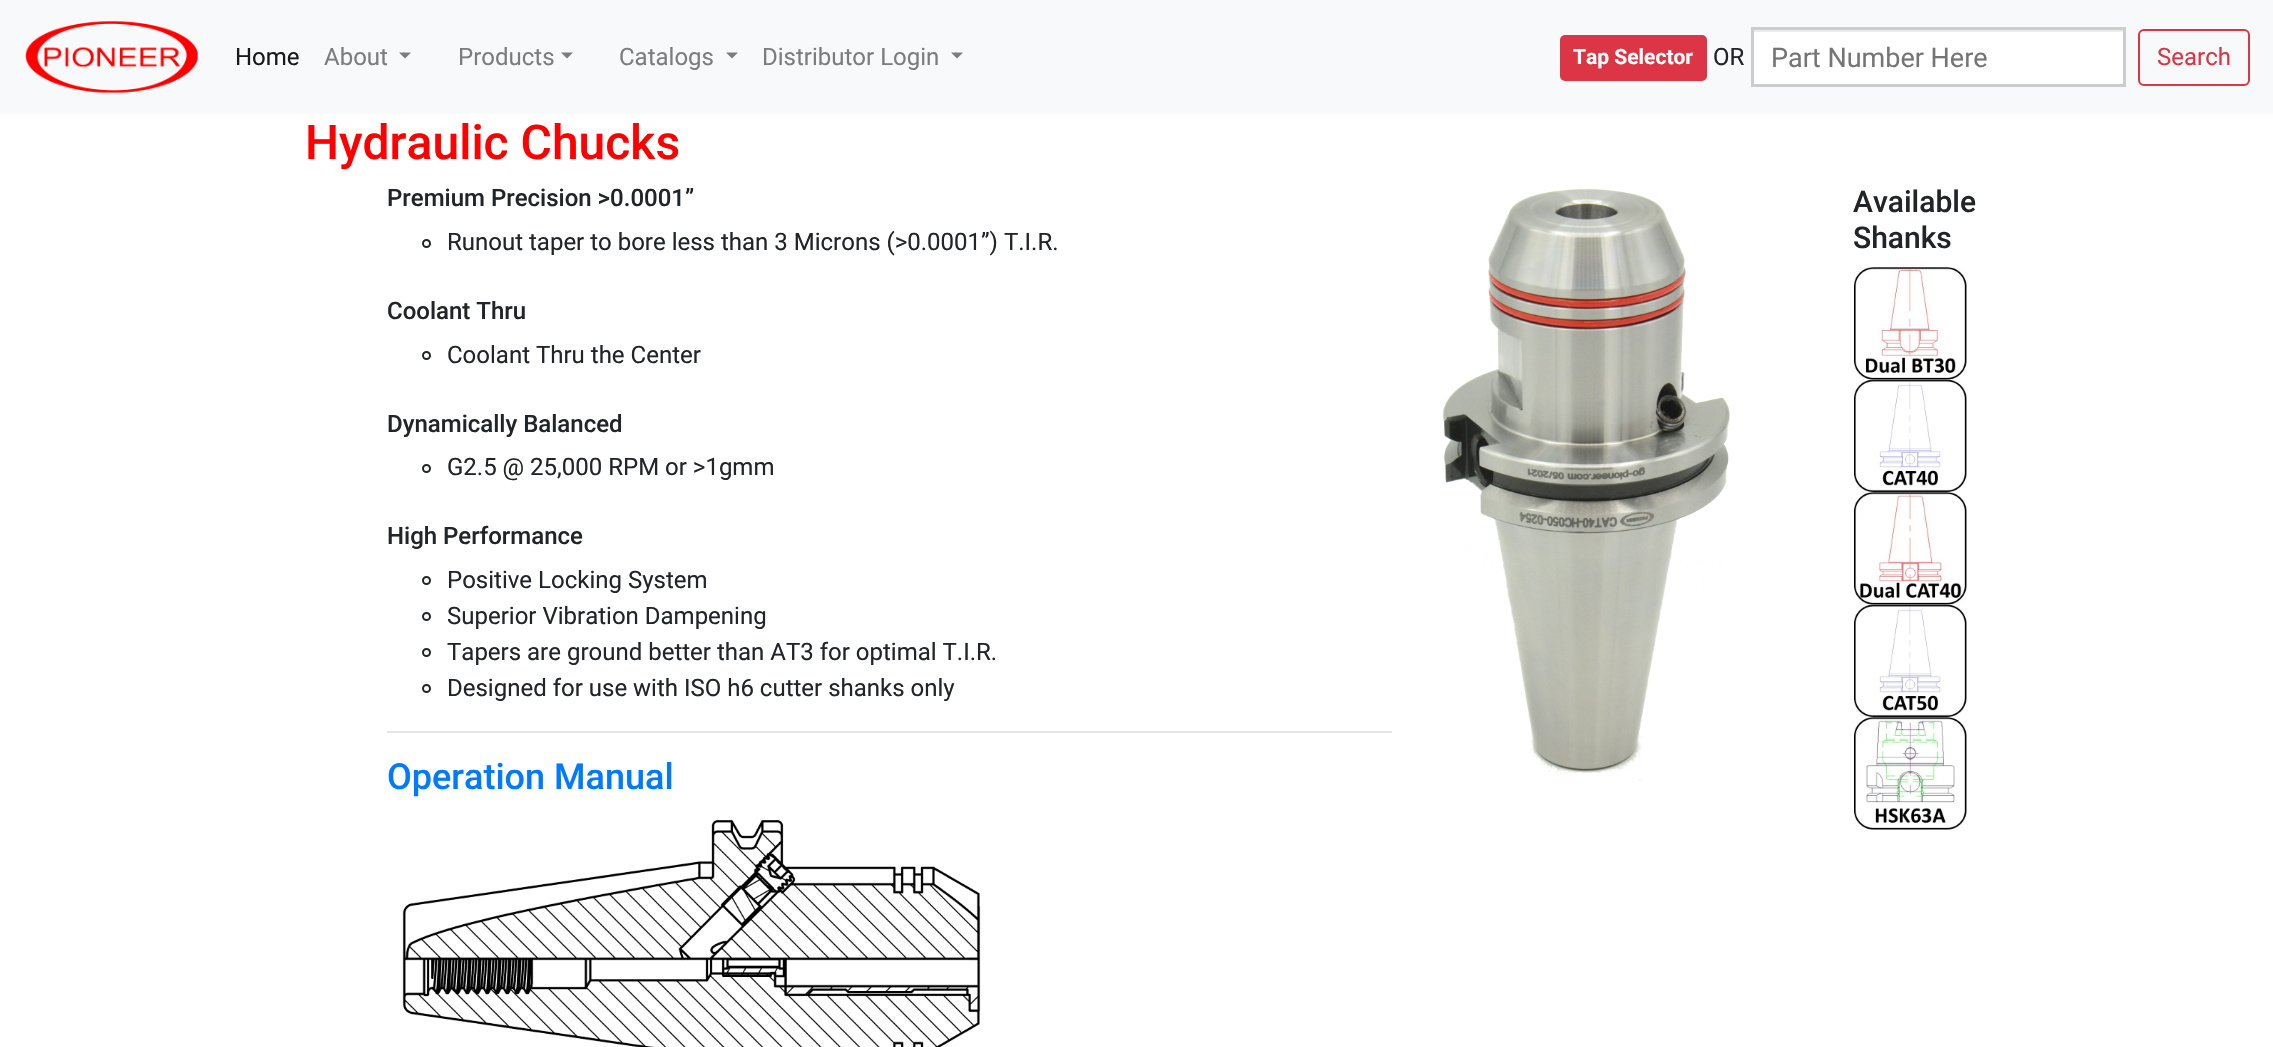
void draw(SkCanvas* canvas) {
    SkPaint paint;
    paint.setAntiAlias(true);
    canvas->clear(0xFFFFFFFF);
    paint.setColor(0xFFF8F9FA);
    canvas->drawRect(SkRect::MakeXYWH(0, 0, 2273, 114), paint);
    canvas->drawImageRect(SkImages::DeferredFromEncodedData(SkData::MakeFromFileName("img1.png")), SkRect::MakeXYWH(25, 21, 173, 72), SkSamplingOptions());
    SkFont font1(fontMgr->matchFamilyStyle("Roboto", SkFontStyle::Normal()), 24);
    font1.setSubpixel(true);
    paint.setColor(0xFF191919);
    canvas->drawString("Home", 235, 65, font1, paint);
    paint.setColor(0xFF7C7D7D);
    canvas->drawString("About", 324, 65, font1, paint);
    canvas->drawPath(SkPathBuilder().moveTo(399, 52.5f).lineTo(411, 52.5f).lineTo(405, 58.5f).close().detach(), paint);
    canvas->drawString("Products", 458, 65, font1, paint);
    canvas->drawPath(SkPathBuilder().moveTo(561, 52.5f).lineTo(573, 52.5f).lineTo(567, 58.5f).close().detach(), paint);
    canvas->drawString("Catalogs", 619, 65, font1, paint);
    canvas->drawPath(SkPathBuilder().moveTo(726, 52.5f).lineTo(738, 52.5f).lineTo(732, 58.5f).close().detach(), paint);
    canvas->drawString("Distributor Login", 762, 65, font1, paint);
    canvas->drawPath(SkPathBuilder().moveTo(951, 52.5f).lineTo(963, 52.5f).lineTo(957, 58.5f).close().detach(), paint);
    paint.setColor(0xFFDC3545);
    canvas->drawRoundRect(SkRect::MakeXYWH(1561, 36, 145, 44), 4, 4, paint);
    paint.setStyle(SkPaint::kStroke_Style);
    paint.setStrokeWidth(2);
    canvas->drawRoundRect(SkRect::MakeXYWH(1561, 36, 145, 44), 4, 4, paint);
    SkFont font2(fontMgr->matchFamilyStyle("Roboto", SkFontStyle::Bold()), 21);
    font2.setSubpixel(true);
    paint.setStyle(SkPaint::kFill_Style);
    paint.setColor(0xFFFFFFFF);
    canvas->drawString("Tap Selector", 1573, 64, font2, paint);
    paint.setColor(0xFF212529);
    canvas->drawString("OR", 1713, 65, font1, paint);
    paint.setColor(0xFFFFFFFF);
    canvas->drawRect(SkRect::MakeXYWH(1754, 32, 369, 52), paint);
    paint.setColor(0xFFECECEC);
    canvas->drawRect(SkRect::MakeXYWH(1754, 30, 369, 2), paint);
    paint.setStyle(SkPaint::kStroke_Style);
    paint.setStrokeWidth(3);
    paint.setColor(0xFFCCCCCC);
    canvas->drawRect(SkRect::MakeXYWH(1752.5f, 28.5f, 372, 57), paint);
    SkFont font3(fontMgr->matchFamilyStyle("Roboto", SkFontStyle::Normal()), 27);
    font3.setSubpixel(true);
    paint.setStyle(SkPaint::kFill_Style);
    paint.setColor(0xFF757575);
    canvas->drawString("Part Number Here", 1771, 67, font3, paint);
    paint.setStyle(SkPaint::kStroke_Style);
    paint.setStrokeWidth(2);
    paint.setColor(0xFFDC3545);
    canvas->drawRoundRect(SkRect::MakeXYWH(2139, 30, 110, 55), 5, 5, paint);
    paint.setStyle(SkPaint::kFill_Style);
    canvas->drawString("Search", 2157, 65, font1, paint);
    SkFont font4(fontMgr->matchFamilyStyle("Roboto", SkFontStyle(500, SkFontStyle::kNormal_Width, SkFontStyle::kUpright_Slant)), 48);
    font4.setSubpixel(true);
    paint.setColor(0xFFFF0000);
    canvas->drawString("Hydraulic Chucks", 305, 159, font4, paint);
    SkFont font5(fontMgr->matchFamilyStyle("Roboto", SkFontStyle(500, SkFontStyle::kNormal_Width, SkFontStyle::kUpright_Slant)), 24);
    font5.setSubpixel(true);
    paint.setColor(0xFF212529);
    canvas->drawString("Premium Precision >0.0001”", 387, 206, font5, paint);
    paint.setStyle(SkPaint::kStroke_Style);
    canvas->drawCircle(426.5f, 243.5f, 3.5f, paint);
    paint.setStyle(SkPaint::kFill_Style);
    canvas->drawString("Runout taper to bore less than 3 Microns (>0.0001”) T.I.R.", 447, 250, font1, paint);
    canvas->drawString("Coolant Thru", 387, 319, font5, paint);
    paint.setStyle(SkPaint::kStroke_Style);
    canvas->drawCircle(426.5f, 355.5f, 3.5f, paint);
    paint.setStyle(SkPaint::kFill_Style);
    canvas->drawString("Coolant Thru the Center", 447, 363, font1, paint);
    canvas->drawString("Dynamically Balanced", 387, 432, font5, paint);
    paint.setStyle(SkPaint::kStroke_Style);
    canvas->drawCircle(426.5f, 468.5f, 3.5f, paint);
    paint.setStyle(SkPaint::kFill_Style);
    canvas->drawString("G2.5 @ 25,000 RPM or >1gmm", 447, 475, font1, paint);
    canvas->drawString("High Performance", 387, 544, font5, paint);
    paint.setStyle(SkPaint::kStroke_Style);
    canvas->drawCircle(426.5f, 580.5f, 3.5f, paint);
    paint.setStyle(SkPaint::kFill_Style);
    canvas->drawString("Positive Locking System", 447, 588, font1, paint);
    paint.setStyle(SkPaint::kStroke_Style);
    canvas->drawCircle(426.5f, 616.5f, 3.5f, paint);
    paint.setStyle(SkPaint::kFill_Style);
    canvas->drawString("Superior Vibration Dampening", 447, 624, font1, paint);
    paint.setStyle(SkPaint::kStroke_Style);
    canvas->drawCircle(426.5f, 652.5f, 3.5f, paint);
    paint.setStyle(SkPaint::kFill_Style);
    canvas->drawString("Tapers are ground better than AT3 for optimal T.I.R.", 447, 660, font1, paint);
    paint.setStyle(SkPaint::kStroke_Style);
    canvas->drawCircle(426.5f, 688.5f, 3.5f, paint);
    paint.setStyle(SkPaint::kFill_Style);
    canvas->drawString("Designed for use with ISO h6 cutter shanks only", 447, 696, font1, paint);
    paint.setColor(0xFFE6E6E6);
    canvas->drawRect(SkRect::MakeXYWH(387, 731, 1005, 2), paint);
    SkFont font6(fontMgr->matchFamilyStyle("Roboto", SkFontStyle(500, SkFontStyle::kNormal_Width, SkFontStyle::kUpright_Slant)), 36);
    font6.setSubpixel(true);
    paint.setColor(0xFF007BFF);
    canvas->drawString("Operation Manual", 387, 789, font6, paint);
    canvas->drawImageRect(SkImages::DeferredFromEncodedData(SkData::MakeFromFileName("img2.png")), SkRect::MakeXYWH(402, 819, 579, 228), SkSamplingOptions());
    canvas->drawImageRect(SkImages::DeferredFromEncodedData(SkData::MakeFromFileName("img3.png")), SkRect::MakeXYWH(1442, 188, 288, 593), SkSamplingOptions());
    SkFont font7(fontMgr->matchFamilyStyle("Roboto", SkFontStyle(500, SkFontStyle::kNormal_Width, SkFontStyle::kUpright_Slant)), 30);
    font7.setSubpixel(true);
    paint.setColor(0xFF212529);
    canvas->drawString("Available", 1853, 212, font7, paint);
    canvas->drawString("Shanks", 1853, 248, font7, paint);
    canvas->drawImageRect(SkImages::DeferredFromEncodedData(SkData::MakeFromFileName("img4.png")), SkRect::MakeXYWH(1854, 267, 113, 113), SkSamplingOptions());
    canvas->drawImageRect(SkImages::DeferredFromEncodedData(SkData::MakeFromFileName("img5.png")), SkRect::MakeXYWH(1854, 379, 113, 113), SkSamplingOptions());
    canvas->drawImageRect(SkImages::DeferredFromEncodedData(SkData::MakeFromFileName("img6.png")), SkRect::MakeXYWH(1854, 492, 113, 113), SkSamplingOptions());
    canvas->drawImageRect(SkImages::DeferredFromEncodedData(SkData::MakeFromFileName("img7.png")), SkRect::MakeXYWH(1854, 604, 113, 113), SkSamplingOptions());
    canvas->drawImageRect(SkImages::DeferredFromEncodedData(SkData::MakeFromFileName("img8.png")), SkRect::MakeXYWH(1854, 717, 113, 113), SkSamplingOptions());
}
